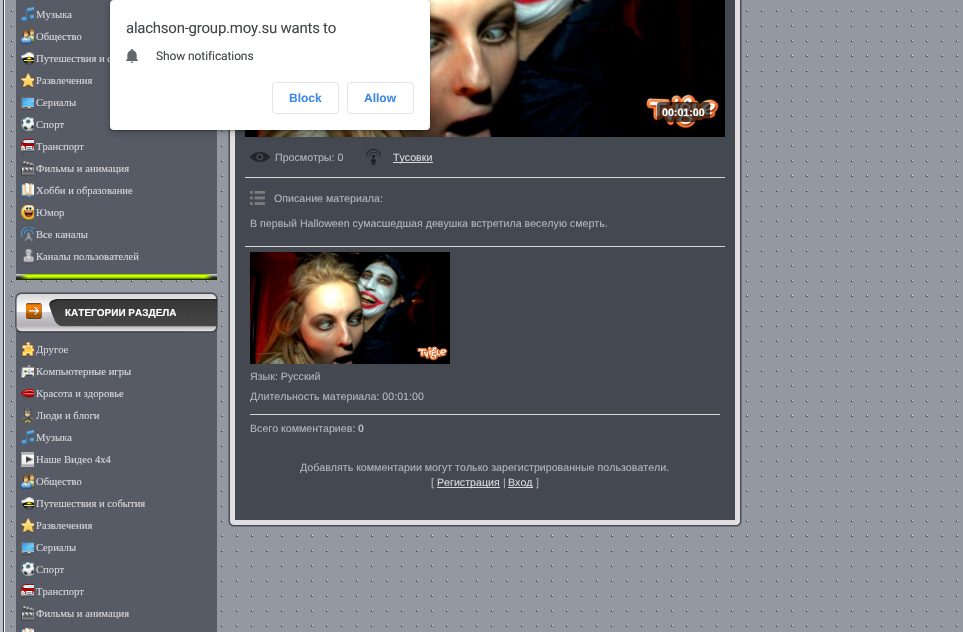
void draw(SkCanvas* canvas) {
    SkPaint paint;
    paint.setAntiAlias(true);
    auto spacedText = [&](const char* s, float x, float y, const SkFont& font, const SkPaint& ink, float letter, float word) {
        std::vector<SkGlyphID> glyphs(font.countText(s, strlen(s), SkTextEncoding::kUTF8));
        std::vector<float> xs(glyphs.size());
        font.textToGlyphs(s, strlen(s), SkTextEncoding::kUTF8, glyphs);
        font.getXPos(glyphs, xs, x);
        float extra = 0;
        for (size_t i = 0; i < glyphs.size(); i++) {
            xs[i] += extra;
            extra += letter + word * (glyphs[i] == font.unicharToGlyph(' '));
        }
        canvas->drawTextBlob(SkTextBlob::MakeFromPosHGlyphs(glyphs, xs, y, font), 0, 0, ink);
    };
    canvas->clear(0xFFBCC2CD);
    paint.setColor(0xFF333333);
    canvas->drawRect(SkRect::MakeXYWH(3, 0, 1, 632), paint);
    paint.setColor(0xFF9498A1);
    canvas->drawRect(SkRect::MakeXYWH(5, 0, 958, 632), paint);
    canvas->drawImageRect(SkImages::DeferredFromEncodedData(SkData::MakeFromFileName("img1.png")), SkRect::MakeXYWH(11, 10, 947, 617), SkSamplingOptions());
    paint.setColor(0xFFFFFFFF);
    canvas->drawRect(SkRect::MakeXYWH(4, 0, 1, 632), paint);
    paint.setColor(0xFF565B66);
    canvas->drawRect(SkRect::MakeXYWH(16, 0, 201, 274), paint);
    canvas->drawImageRect(SkImages::DeferredFromEncodedData(SkData::MakeFromFileName("img2.png")), SkRect::MakeXYWH(21, 7, 13, 15), SkSamplingOptions());
    SkFont font1(fontMgr->matchFamilyStyle("Liberation Serif", SkFontStyle::Normal()), 10.65f);
    font1.setSubpixel(true);
    paint.setColor(0xFFD9D7DB);
    canvas->drawString("Музыка", 36, 18, font1, paint);
    canvas->drawImageRect(SkImages::DeferredFromEncodedData(SkData::MakeFromFileName("img3.png")), SkRect::MakeXYWH(21, 29, 13, 15), SkSamplingOptions());
    canvas->drawString("Общество", 36, 40, font1, paint);
    canvas->drawImageRect(SkImages::DeferredFromEncodedData(SkData::MakeFromFileName("img4.png")), SkRect::MakeXYWH(21, 52, 13, 13), SkSamplingOptions());
    canvas->drawString("Путешествия и с", 36, 62, font1, paint);
    canvas->drawImageRect(SkImages::DeferredFromEncodedData(SkData::MakeFromFileName("img5.png")), SkRect::MakeXYWH(21, 73, 13, 15), SkSamplingOptions());
    canvas->drawString("Развлечения", 36, 84, font1, paint);
    canvas->drawImageRect(SkImages::DeferredFromEncodedData(SkData::MakeFromFileName("img6.png")), SkRect::MakeXYWH(21, 95, 13, 15), SkSamplingOptions());
    canvas->drawString("Сериалы", 36, 106, font1, paint);
    canvas->drawImageRect(SkImages::DeferredFromEncodedData(SkData::MakeFromFileName("img7.png")), SkRect::MakeXYWH(21, 117, 13, 15), SkSamplingOptions());
    canvas->drawString("Спорт", 36, 128, font1, paint);
    canvas->drawImageRect(SkImages::DeferredFromEncodedData(SkData::MakeFromFileName("img8.png")), SkRect::MakeXYWH(21, 139, 13, 15), SkSamplingOptions());
    canvas->drawString("Транспорт", 36, 150, font1, paint);
    canvas->drawImageRect(SkImages::DeferredFromEncodedData(SkData::MakeFromFileName("img9.png")), SkRect::MakeXYWH(21, 161, 13, 15), SkSamplingOptions());
    canvas->drawString("Фильмы и анимация", 36, 172, font1, paint);
    canvas->drawImageRect(SkImages::DeferredFromEncodedData(SkData::MakeFromFileName("img10.png")), SkRect::MakeXYWH(21, 183, 13, 15), SkSamplingOptions());
    canvas->drawString("Хобби и образование", 36, 194, font1, paint);
    canvas->drawImageRect(SkImages::DeferredFromEncodedData(SkData::MakeFromFileName("img11.png")), SkRect::MakeXYWH(21, 205, 13, 15), SkSamplingOptions());
    canvas->drawString("Юмор", 36, 216, font1, paint);
    canvas->drawImageRect(SkImages::DeferredFromEncodedData(SkData::MakeFromFileName("img12.png")), SkRect::MakeXYWH(21, 227, 13, 15), SkSamplingOptions());
    canvas->drawString("Все каналы", 36, 238, font1, paint);
    canvas->drawImageRect(SkImages::DeferredFromEncodedData(SkData::MakeFromFileName("img13.png")), SkRect::MakeXYWH(23, 249, 11, 15), SkSamplingOptions());
    canvas->drawString("Каналы пользователей", 36, 260, font1, paint);
    canvas->drawImageRect(SkImages::DeferredFromEncodedData(SkData::MakeFromFileName("img14.png")), SkRect::MakeXYWH(15, 274, 203, 6), SkSamplingOptions());
    paint.setColor(0xFF565B66);
    canvas->drawRect(SkRect::MakeXYWH(16, 333, 201, 299), paint);
    paint.setColor(0xFF9498A1);
    canvas->drawRect(SkRect::MakeXYWH(26, 295, 182, 32), paint);
    canvas->drawImageRect(SkImages::DeferredFromEncodedData(SkData::MakeFromFileName("img15.png")), SkRect::MakeXYWH(15, 292, 203, 41), SkSamplingOptions());
    SkFont font2(fontMgr->matchFamilyStyle("Liberation Sans", SkFontStyle::Bold()), 10);
    font2.setSubpixel(true);
    paint.setColor(0xFFFFFFFF);
    canvas->drawString("КАТЕГОРИИ РАЗДЕЛА", 65, 316, font2, paint);
    canvas->drawImageRect(SkImages::DeferredFromEncodedData(SkData::MakeFromFileName("img16.png")), SkRect::MakeXYWH(22, 342, 12, 15), SkSamplingOptions());
    paint.setColor(0xFFD9D7DB);
    canvas->drawString("Другое", 36, 353, font1, paint);
    canvas->drawImageRect(SkImages::DeferredFromEncodedData(SkData::MakeFromFileName("img17.png")), SkRect::MakeXYWH(21, 365, 13, 14), SkSamplingOptions());
    canvas->drawString("Компьютерные игры", 36, 375, font1, paint);
    canvas->drawImageRect(SkImages::DeferredFromEncodedData(SkData::MakeFromFileName("img18.png")), SkRect::MakeXYWH(21, 389, 13, 9), SkSamplingOptions());
    canvas->drawString("Красота и здоровье", 36, 397, font1, paint);
    canvas->drawImageRect(SkImages::DeferredFromEncodedData(SkData::MakeFromFileName("img19.png")), SkRect::MakeXYWH(21, 408, 13, 15), SkSamplingOptions());
    canvas->drawString("Люди и блоги", 36, 419, font1, paint);
    canvas->drawImageRect(SkImages::DeferredFromEncodedData(SkData::MakeFromFileName("img2.png")), SkRect::MakeXYWH(21, 430, 13, 15), SkSamplingOptions());
    canvas->drawString("Музыка", 36, 441, font1, paint);
    canvas->drawImageRect(SkImages::DeferredFromEncodedData(SkData::MakeFromFileName("img20.png")), SkRect::MakeXYWH(21, 452, 13, 15), SkSamplingOptions());
    canvas->drawString("Наше Видео 4х4", 36, 463, font1, paint);
    canvas->drawImageRect(SkImages::DeferredFromEncodedData(SkData::MakeFromFileName("img3.png")), SkRect::MakeXYWH(21, 474, 13, 15), SkSamplingOptions());
    canvas->drawString("Общество", 36, 485, font1, paint);
    canvas->drawImageRect(SkImages::DeferredFromEncodedData(SkData::MakeFromFileName("img4.png")), SkRect::MakeXYWH(21, 497, 13, 13), SkSamplingOptions());
    canvas->drawString("Путешествия и события", 36, 507, font1, paint);
    canvas->drawImageRect(SkImages::DeferredFromEncodedData(SkData::MakeFromFileName("img5.png")), SkRect::MakeXYWH(21, 518, 13, 15), SkSamplingOptions());
    canvas->drawString("Развлечения", 36, 529, font1, paint);
    canvas->drawImageRect(SkImages::DeferredFromEncodedData(SkData::MakeFromFileName("img6.png")), SkRect::MakeXYWH(21, 540, 13, 15), SkSamplingOptions());
    canvas->drawString("Сериалы", 36, 551, font1, paint);
    canvas->drawImageRect(SkImages::DeferredFromEncodedData(SkData::MakeFromFileName("img7.png")), SkRect::MakeXYWH(21, 562, 13, 15), SkSamplingOptions());
    canvas->drawString("Спорт", 36, 573, font1, paint);
    canvas->drawImageRect(SkImages::DeferredFromEncodedData(SkData::MakeFromFileName("img8.png")), SkRect::MakeXYWH(21, 584, 13, 15), SkSamplingOptions());
    canvas->drawString("Транспорт", 36, 595, font1, paint);
    canvas->drawImageRect(SkImages::DeferredFromEncodedData(SkData::MakeFromFileName("img9.png")), SkRect::MakeXYWH(21, 606, 13, 15), SkSamplingOptions());
    canvas->drawString("Фильмы и анимация", 36, 617, font1, paint);
    canvas->drawImageRect(SkImages::DeferredFromEncodedData(SkData::MakeFromFileName("img21.png")), SkRect::MakeXYWH(21, 628, 13, 4), SkSamplingOptions());
    canvas->drawImageRect(SkImages::DeferredFromEncodedData(SkData::MakeFromFileName("img22.png")), SkRect::MakeXYWH(228, 130, 7, 390), SkSamplingOptions());
    paint.setColor(0xFF444851);
    canvas->drawRect(SkRect::MakeXYWH(235, 0, 500, 520), paint);
    canvas->drawImageRect(SkImages::DeferredFromEncodedData(SkData::MakeFromFileName("img23.png")), SkRect::MakeXYWH(245, 0, 480, 137), SkSamplingOptions());
    paint.setColor(0xA1000000);
    canvas->drawRoundRect(SkRect::MakeXYWH(657, 102, 53, 20), 3, 3, paint);
    SkFont font3(fontMgr->matchFamilyStyle("Liberation Sans", SkFontStyle::Bold()), 10.65f);
    font3.setSubpixel(true);
    paint.setColor(0xFFFFFFFF);
    canvas->drawString("00:01:00", 662, 116, font3, paint);
    canvas->drawImageRect(SkImages::DeferredFromEncodedData(SkData::MakeFromFileName("img24.png")), SkRect::MakeXYWH(250, 152, 20, 10), SkSamplingOptions());
    SkFont font4(fontMgr->matchFamilyStyle("Liberation Sans", SkFontStyle::Normal()), 10.65f);
    font4.setSubpixel(true);
    paint.setColor(0xFFB0B5C0);
    canvas->drawString("Просмотры: 0", 275, 161, font4, paint);
    canvas->drawImageRect(SkImages::DeferredFromEncodedData(SkData::MakeFromFileName("img25.png")), SkRect::MakeXYWH(366, 149, 15, 16), SkSamplingOptions());
    paint.setColor(0xFFD9D7DB);
    canvas->drawRect(SkRect::MakeXYWH(393, 162, 40, 1), paint);
    canvas->drawString("Тусовки", 393, 161, font4, paint);
    paint.setColor(0xFFD6D6D6);
    canvas->drawRect(SkRect::MakeXYWH(245, 177, 480, 1), paint);
    canvas->drawImageRect(SkImages::DeferredFromEncodedData(SkData::MakeFromFileName("img26.png")), SkRect::MakeXYWH(250, 191, 15, 14), SkSamplingOptions());
    paint.setColor(0xFFB0B5C0);
    canvas->drawString("Описание материала:", 274, 202, font4, paint);
    canvas->drawString("В первый Halloween сумасшедшая девушка встретила веселую смерть.", 250, 227, font4, paint);
    paint.setColor(0xFFD6D6D6);
    canvas->drawRect(SkRect::MakeXYWH(245, 246, 480, 1), paint);
    canvas->drawImageRect(SkImages::DeferredFromEncodedData(SkData::MakeFromFileName("img27.png")), SkRect::MakeXYWH(250, 252, 200, 112), SkSamplingOptions());
    paint.setColor(0xFFB0B5C0);
    canvas->drawString("Язык: Русский", 250, 380, font4, paint);
    canvas->drawString("Длительность материала: 00:01:00", 250, 400, font4, paint);
    paint.setColor(0xFFD6D6D6);
    canvas->drawRect(SkRect::MakeXYWH(250, 414, 470, 1), paint);
    paint.setColor(0xFFB0B5C0);
    canvas->drawString("Всего комментариев:", 250, 432, font4, paint);
    canvas->drawString("0", 358, 432, font3, paint);
    canvas->drawString("Добавлять комментарии могут только зарегистрированные пользователи.", 300, 471, font4, paint);
    canvas->drawString("[", 431, 486, font4, paint);
    paint.setColor(0xFFD9D7DB);
    canvas->drawRect(SkRect::MakeXYWH(437, 487, 63, 1), paint);
    canvas->drawString("Регистрация", 437, 486, font4, paint);
    paint.setColor(0xFFB0B5C0);
    canvas->drawString("|", 503, 486, font4, paint);
    paint.setColor(0xFFD9D7DB);
    canvas->drawRect(SkRect::MakeXYWH(508, 487, 25, 1), paint);
    canvas->drawString("Вход", 508, 486, font4, paint);
    paint.setColor(0xFFB0B5C0);
    canvas->drawString("]", 536, 486, font4, paint);
    canvas->drawImageRect(SkImages::DeferredFromEncodedData(SkData::MakeFromFileName("img28.png")), SkRect::MakeXYWH(735, 0, 7, 520), SkSamplingOptions());
    canvas->drawImageRect(SkImages::DeferredFromEncodedData(SkData::MakeFromFileName("img29.png")), SkRect::MakeXYWH(228, 520, 7, 7), SkSamplingOptions());
    canvas->drawImageRect(SkImages::DeferredFromEncodedData(SkData::MakeFromFileName("img30.png")), SkRect::MakeXYWH(235, 520, 500, 7), SkSamplingOptions());
    canvas->drawImageRect(SkImages::DeferredFromEncodedData(SkData::MakeFromFileName("img31.png")), SkRect::MakeXYWH(735, 520, 7, 7), SkSamplingOptions());
    paint.setColor(0x26000000);
    paint.setMaskFilter(SkMaskFilter::MakeBlur(kNormal_SkBlurStyle, 3));
    canvas->drawRoundRect(SkRect::MakeXYWH(108, 0, 324, 134), 6, 6, paint);
    paint.setMaskFilter(nullptr);
    paint.setColor(0x4D000000);
    paint.setMaskFilter(SkMaskFilter::MakeBlur(kNormal_SkBlurStyle, 1));
    canvas->drawRoundRect(SkRect::MakeXYWH(110, 1, 320, 130), 4, 4, paint);
    paint.setMaskFilter(nullptr);
    paint.setColor(0xFFFFFFFF);
    canvas->drawRoundRect(SkRect::MakeXYWH(110, 0, 320, 130), 4, 4, paint);
    SkFont font5(fontMgr->matchFamilyStyle("Roboto", SkFontStyle::Normal()), 15);
    font5.setSubpixel(true);
    paint.setColor(0xFF434749);
    spacedText("alachson-group.moy.su wants to", 126, 33, font5, paint, -0.25f, 0);
    canvas->drawImageRect(SkImages::DeferredFromEncodedData(SkData::MakeFromFileName("img32.png")), SkRect::MakeXYWH(126, 49, 12, 14), SkSamplingOptions());
    SkFont font6(fontMgr->matchFamilyStyle("Roboto", SkFontStyle::Normal()), 12);
    font6.setSubpixel(true);
    spacedText("Show notifications", 156, 60, font6, paint, -0.1f, 0);
    paint.setStyle(SkPaint::kStroke_Style);
    paint.setStrokeWidth(1);
    paint.setColor(0xFFE4E4E4);
    canvas->drawRoundRect(SkRect::MakeXYWH(272.5f, 82.5f, 66, 31), 3.5f, 3.5f, paint);
    SkFont font7(fontMgr->matchFamilyStyle("Liberation Sans", SkFontStyle::Bold()), 12);
    font7.setSubpixel(true);
    paint.setStyle(SkPaint::kFill_Style);
    paint.setColor(0xFF4089E8);
    canvas->drawString("Block", 289, 102, font7, paint);
    paint.setStyle(SkPaint::kStroke_Style);
    paint.setColor(0xFFE4E4E4);
    canvas->drawRoundRect(SkRect::MakeXYWH(347.5f, 82.5f, 66, 31), 3.5f, 3.5f, paint);
    paint.setStyle(SkPaint::kFill_Style);
    paint.setColor(0xFF4089E8);
    canvas->drawString("Allow", 364, 102, font7, paint);
}
